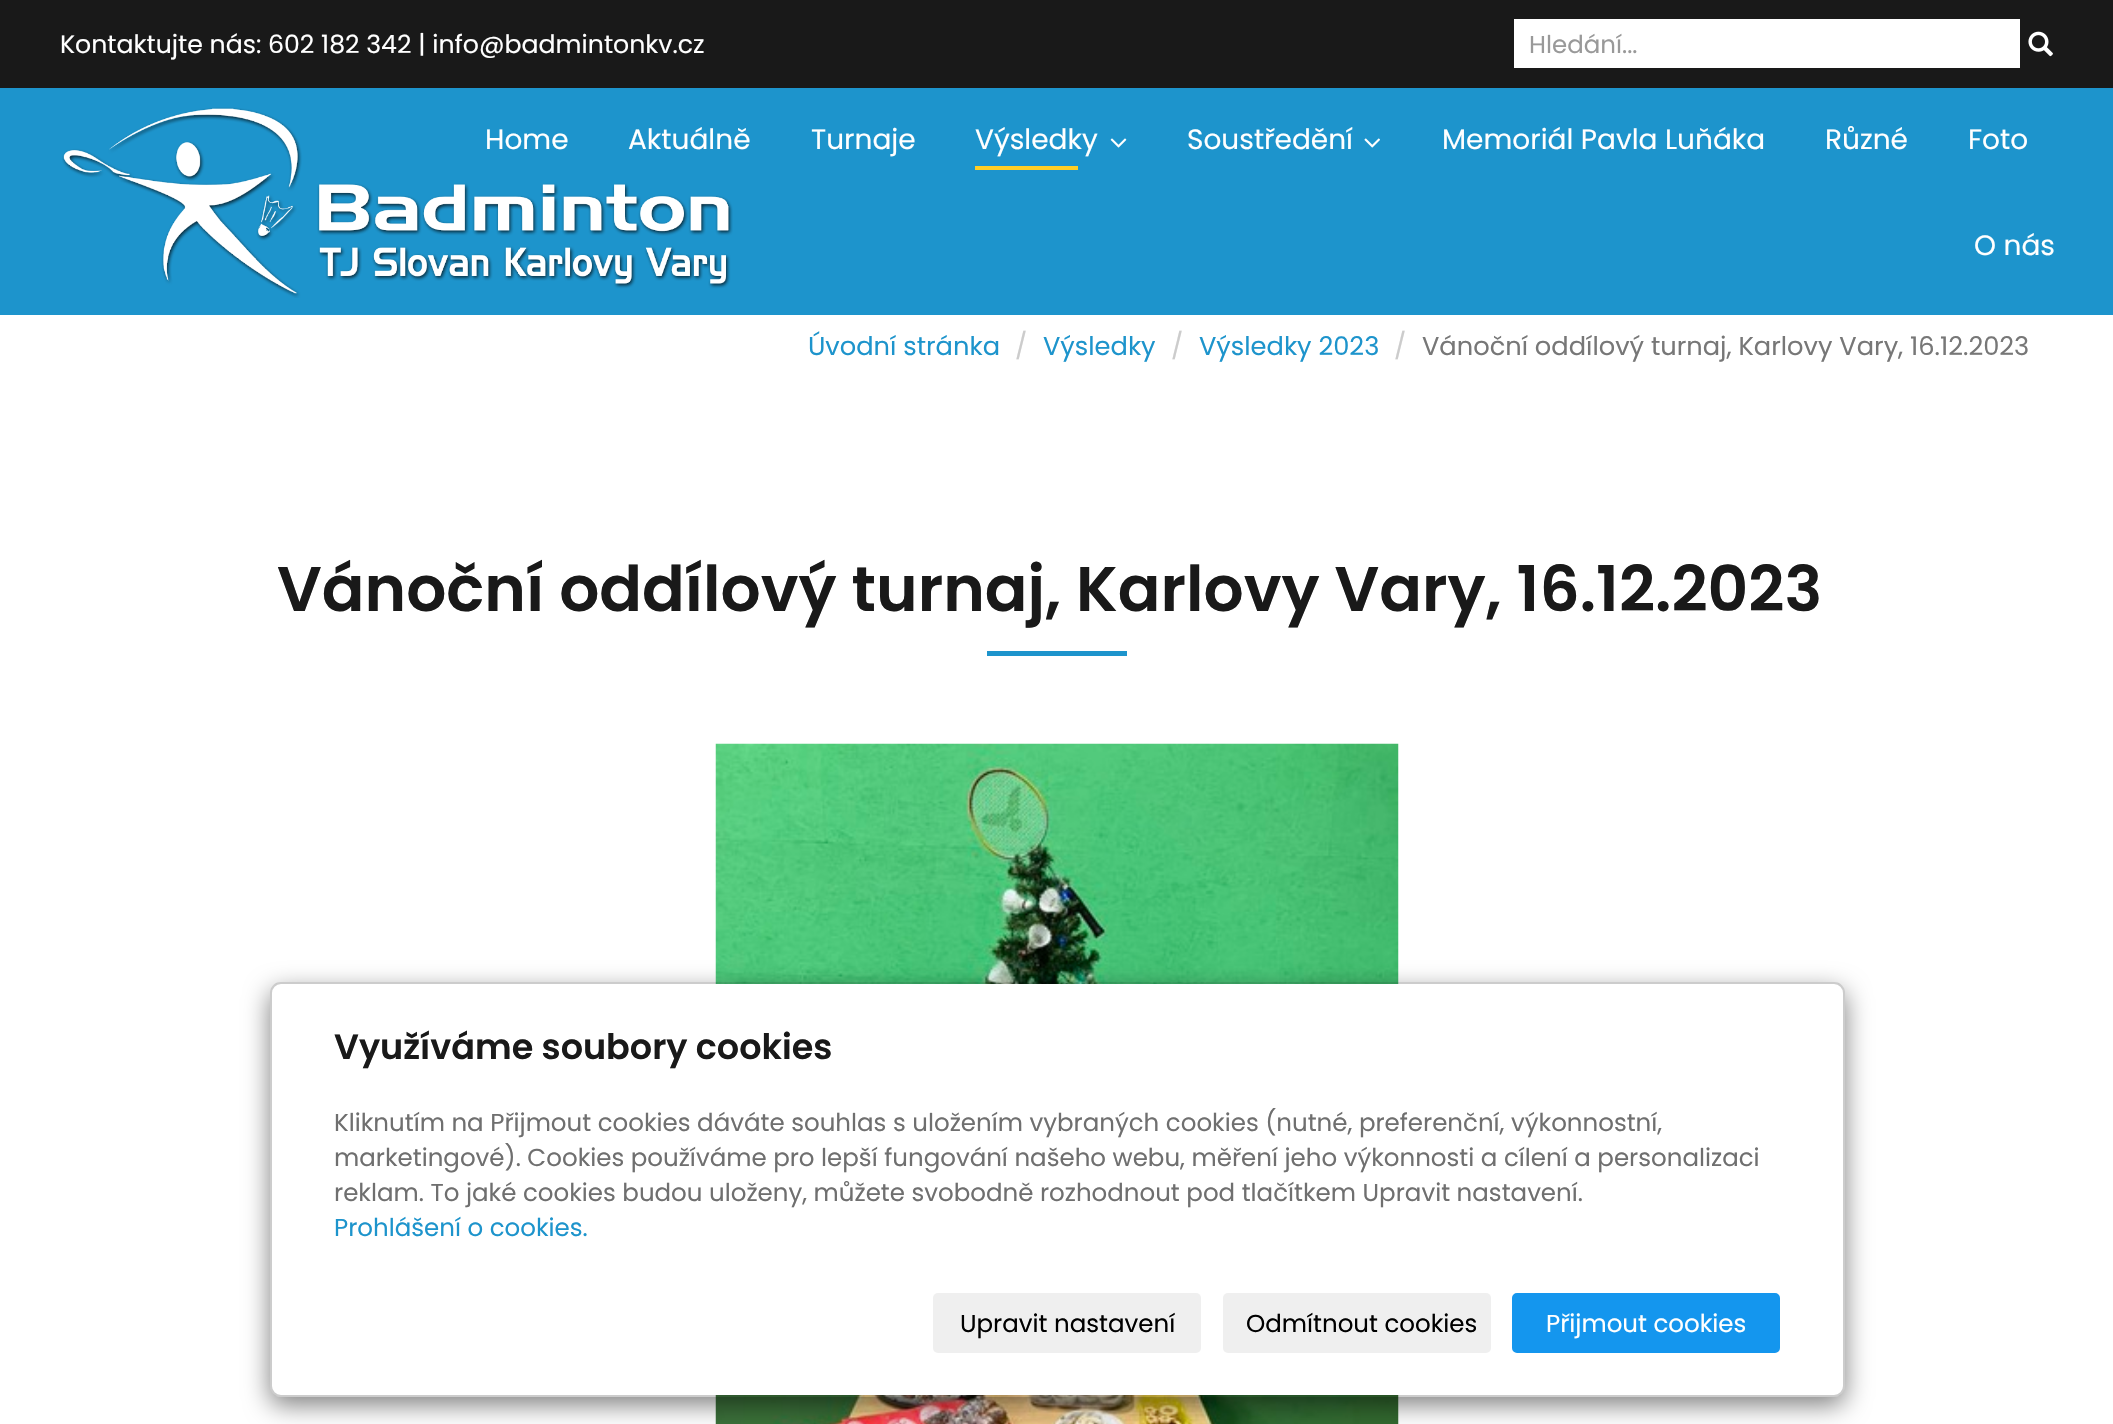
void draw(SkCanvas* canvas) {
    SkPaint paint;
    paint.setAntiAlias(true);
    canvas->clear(0xFFFFFFFF);
    paint.setColor(0xFF191919);
    canvas->drawRect(SkRect::MakeXYWH(0, 0, 2113, 88), paint);
    SkFont font1(fontMgr->matchFamilyStyle("Poppins", SkFontStyle::Normal()), 25.2f);
    font1.setSubpixel(true);
    paint.setColor(0xFFFFFFFF);
    canvas->drawString("Kontaktujte nás: 602 182 342 | info@badmintonkv.cz", 60, 53, font1, paint);
    canvas->drawRect(SkRect::MakeXYWH(1514, 19, 506, 49), paint);
    SkFont font2(fontMgr->matchFamilyStyle("Poppins", SkFontStyle::Normal()), 24.5f);
    font2.setSubpixel(true);
    paint.setColor(0xFF999999);
    canvas->drawString("Hledání...", 1529, 53, font2, paint);
    canvas->drawImageRect(SkImages::DeferredFromEncodedData(SkData::MakeFromFileName("img1.png")), SkRect::MakeXYWH(2028, 31, 25, 26), SkSamplingOptions());
    paint.setColor(0xFF1D94CC);
    canvas->drawRect(SkRect::MakeXYWH(0, 88, 2113, 227), paint);
    canvas->drawImageRect(SkImages::DeferredFromEncodedData(SkData::MakeFromFileName("img2.png")), SkRect::MakeXYWH(62, 107, 671, 191), SkSamplingOptions());
    SkFont font3(fontMgr->matchFamilyStyle("Poppins", SkFontStyle::Normal()), 28);
    font3.setSubpixel(true);
    paint.setColor(0xFFFFFFFF);
    canvas->drawString("Home", 485, 149, font3, paint);
    canvas->drawString("Aktuálně", 628, 149, font3, paint);
    canvas->drawString("Turnaje", 811, 149, font3, paint);
    canvas->drawString("Výsledky", 975, 149, font3, paint);
    canvas->drawImageRect(SkImages::DeferredFromEncodedData(SkData::MakeFromFileName("img3.png")), SkRect::MakeXYWH(1110, 138, 17, 10), SkSamplingOptions());
    paint.setColor(0xFFFFCE25);
    canvas->drawRect(SkRect::MakeXYWH(975, 166, 103, 4), paint);
    paint.setColor(0xFFFFFFFF);
    canvas->drawString("Soustředění", 1187, 149, font3, paint);
    canvas->drawImageRect(SkImages::DeferredFromEncodedData(SkData::MakeFromFileName("img4.png")), SkRect::MakeXYWH(1364, 138, 16, 10), SkSamplingOptions());
    canvas->drawString("Memoriál Pavla Luňáka", 1442, 149, font3, paint);
    canvas->drawString("Různé", 1825, 149, font3, paint);
    canvas->drawString("Foto", 1968, 149, font3, paint);
    canvas->drawString("O nás", 1974, 255, font3, paint);
    SkFont font4(fontMgr->matchFamilyStyle("Poppins", SkFontStyle::Normal()), 25.7f);
    font4.setSubpixel(true);
    paint.setColor(0xFF1D94CC);
    canvas->drawString("Úvodní stránka", 808, 355, font4, paint);
    paint.setColor(0xFFCCCCCC);
    canvas->drawString("/", 1015, 355, font4, paint);
    paint.setColor(0xFF1D94CC);
    canvas->drawString("Výsledky", 1043, 355, font4, paint);
    paint.setColor(0xFFCCCCCC);
    canvas->drawString("/", 1171, 355, font4, paint);
    paint.setColor(0xFF1D94CC);
    canvas->drawString("Výsledky 2023", 1199, 355, font4, paint);
    paint.setColor(0xFFCCCCCC);
    canvas->drawString("/", 1394, 355, font4, paint);
    paint.setColor(0xFF777777);
    canvas->drawString("Vánoční oddílový turnaj, Karlovy Vary, 16.12.2023", 1422, 355, font4, paint);
    SkFont font5(fontMgr->matchFamilyStyle("Poppins", SkFontStyle(600, SkFontStyle::kNormal_Width, SkFontStyle::kUpright_Slant)), 63);
    font5.setSubpixel(true);
    paint.setColor(0xFF191919);
    canvas->drawString("Vánoční oddílový turnaj, Karlovy Vary, 16.12.2023", 277, 611, font5, paint);
    paint.setColor(0xFF1D94CC);
    canvas->drawRect(SkRect::MakeXYWH(987, 651, 140, 5), paint);
    canvas->drawImageRect(SkImages::DeferredFromEncodedData(SkData::MakeFromFileName("img5.png")), SkRect::MakeXYWH(715, 743, 684, 681), SkSamplingOptions());
    canvas->save();
    canvas->clipPath(SkPathBuilder(SkPathFillType::kEvenOdd).moveTo(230, 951).lineTo(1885, 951).lineTo(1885, 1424).lineTo(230, 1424).close().moveTo(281, 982).lineTo(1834, 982).cubicTo(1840, 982, 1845, 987, 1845, 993).lineTo(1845, 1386).cubicTo(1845, 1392, 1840, 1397, 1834, 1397).lineTo(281, 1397).cubicTo(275, 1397, 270, 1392, 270, 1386).lineTo(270, 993).cubicTo(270, 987, 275, 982, 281, 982).close().detach(), true);
    paint.setColor(0x80000000);
    paint.setMaskFilter(SkMaskFilter::MakeBlur(kNormal_SkBlurStyle, 13));
    canvas->drawRoundRect(SkRect::MakeXYWH(270, 991, 1575, 414), 11, 11, paint);
    paint.setMaskFilter(nullptr);
    canvas->restore();
    paint.setColor(0xFFFFFFFF);
    canvas->drawRoundRect(SkRect::MakeXYWH(271, 984, 1572, 411), 9, 9, paint);
    paint.setStyle(SkPaint::kStroke_Style);
    paint.setStrokeWidth(2);
    paint.setColor(0x33000000);
    canvas->drawRoundRect(SkRect::MakeXYWH(271, 983, 1573, 413), 10, 10, paint);
    SkFont font6(fontMgr->matchFamilyStyle("Poppins", SkFontStyle(600, SkFontStyle::kNormal_Width, SkFontStyle::kUpright_Slant)), 35);
    font6.setSubpixel(true);
    paint.setStyle(SkPaint::kFill_Style);
    paint.setColor(0xFF191919);
    canvas->drawString("Využíváme soubory cookies", 334, 1059, font6, paint);
    paint.setColor(0xFF6F6F6F);
    canvas->drawString("Kliknutím na Přijmout cookies dáváte souhlas s uložením vybraných cookies (nutné, preferenční, výkonnostní,", 334, 1131, font2, paint);
    canvas->drawString("marketingové). Cookies používáme pro lepší fungování našeho webu, měření jeho výkonnosti a cílení a personalizaci", 334, 1166, font2, paint);
    canvas->drawString("reklam. To jaké cookies budou uloženy, můžete svobodně rozhodnout pod tlačítkem Upravit nastavení.", 334, 1201, font2, paint);
    paint.setColor(0xFF1D94CC);
    canvas->drawString("Prohlášení o cookies.", 334, 1236, font2, paint);
    paint.setColor(0xFFEFEFEF);
    canvas->drawRoundRect(SkRect::MakeXYWH(933, 1293, 268, 60), 5, 5, paint);
    paint.setColor(0xFF000000);
    canvas->drawString("Upravit nastavení", 960, 1332, font2, paint);
    paint.setColor(0xFFEFEFEF);
    canvas->drawRoundRect(SkRect::MakeXYWH(1223, 1293, 268, 60), 5, 5, paint);
    paint.setColor(0xFF000000);
    canvas->drawString("Odmítnout cookies", 1246, 1332, font2, paint);
    paint.setColor(0xFF1496EE);
    canvas->drawRoundRect(SkRect::MakeXYWH(1513, 1294, 266, 58), 4, 4, paint);
    paint.setStyle(SkPaint::kStroke_Style);
    canvas->drawRoundRect(SkRect::MakeXYWH(1513, 1294, 266, 58), 4, 4, paint);
    paint.setStyle(SkPaint::kFill_Style);
    paint.setColor(0xFFFFFFFF);
    canvas->drawString("Přijmout cookies", 1546, 1332, font2, paint);
}
